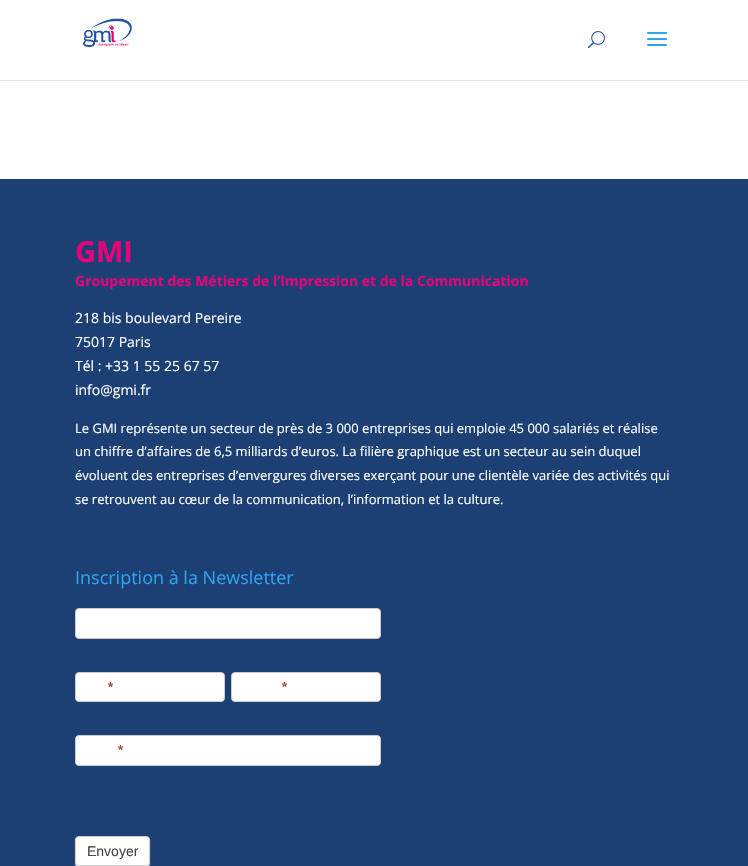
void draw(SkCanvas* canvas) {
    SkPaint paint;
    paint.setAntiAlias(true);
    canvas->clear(0xFFFFFFFF);
    paint.setColor(0xFFE6E6E6);
    canvas->drawRect(SkRect::MakeXYWH(0, 80, 748, 1), paint);
    canvas->drawImageRect(SkImages::DeferredFromEncodedData(SkData::MakeFromFileName("img1.png")), SkRect::MakeXYWH(83, 18, 49, 29), SkSamplingOptions());
    canvas->drawImageRect(SkImages::DeferredFromEncodedData(SkData::MakeFromFileName("img2.png")), SkRect::MakeXYWH(588, 31, 17, 18), SkSamplingOptions());
    canvas->drawImageRect(SkImages::DeferredFromEncodedData(SkData::MakeFromFileName("img3.png")), SkRect::MakeXYWH(647, 32, 20, 14), SkSamplingOptions());
    paint.setColor(0xFF1C4074);
    canvas->drawRect(SkRect::MakeXYWH(0, 179, 748, 687), paint);
    SkFont font1(fontMgr->matchFamilyStyle("Open Sans", SkFontStyle::Bold()), 29);
    font1.setSubpixel(true);
    paint.setColor(0xFFE9017B);
    canvas->drawString("GMI", 75, 262, font1, paint);
    SkFont font2(fontMgr->matchFamilyStyle("Open Sans", SkFontStyle::Bold()), 14);
    font2.setSubpixel(true);
    canvas->drawString("Groupement des Métiers de l’Impression et de la Communication", 75, 286, font2, paint);
    SkFont font3(fontMgr->matchFamilyStyle("Open Sans", SkFontStyle::Normal()), 14);
    font3.setSubpixel(true);
    paint.setColor(0xFFFFFFFF);
    canvas->drawString("218 bis boulevard Pereire", 75, 323, font3, paint);
    canvas->drawString("75017 Paris", 75, 347, font3, paint);
    canvas->drawString("Tél : +33 1 55 25 67 57", 75, 371, font3, paint);
    canvas->drawString("info@gmi.fr", 75, 395, font3, paint);
    SkFont font4(fontMgr->matchFamilyStyle("Open Sans", SkFontStyle::Normal()), 13);
    font4.setSubpixel(true);
    canvas->drawString("Le GMI représente un secteur de près de 3 000 entreprises qui emploie 45 000 salariés et réalise", 75, 433, font4, paint);
    canvas->drawString("un chiffre d’affaires de 6,5 milliards d’euros. La filière graphique est un secteur au sein duquel", 75, 456, font4, paint);
    canvas->drawString("évoluent des entreprises d’envergures diverses exerçant pour une clientèle variée des activités qui", 75, 480, font4, paint);
    canvas->drawString("se retrouvent au cœur de la communication, l’information et la culture.", 75, 504, font4, paint);
    SkFont font5(fontMgr->matchFamilyStyle("Open Sans", SkFontStyle::Normal()), 18);
    font5.setSubpixel(true);
    paint.setColor(0xFF2EA3F2);
    canvas->drawString("Inscription à la Newsletter", 75, 584, font5, paint);
    paint.setColor(0xFFFFFFFF);
    canvas->drawRoundRect(SkRect::MakeXYWH(75.5f, 608.5f, 305, 30), 3.5f, 3.5f, paint);
    paint.setStyle(SkPaint::kStroke_Style);
    paint.setStrokeWidth(1);
    paint.setColor(0xFFCCCCCC);
    canvas->drawRoundRect(SkRect::MakeXYWH(75.5f, 608.5f, 305, 30), 3.5f, 3.5f, paint);
    paint.setStyle(SkPaint::kFill_Style);
    paint.setColor(0xFFFFFFFF);
    canvas->drawRoundRect(SkRect::MakeXYWH(75.5f, 672.5f, 149, 29), 3.5f, 3.5f, paint);
    paint.setStyle(SkPaint::kStroke_Style);
    paint.setColor(0xFFCCCCCC);
    canvas->drawRoundRect(SkRect::MakeXYWH(75.5f, 672.5f, 149, 29), 3.5f, 3.5f, paint);
    SkFont font6(fontMgr->matchFamilyStyle("Liberation Sans", SkFontStyle::Bold()), 13);
    font6.setSubpixel(true);
    paint.setStyle(SkPaint::kFill_Style);
    paint.setColor(0xFFB94A48);
    canvas->drawString("*", 108, 691, font6, paint);
    paint.setColor(0xFFFFFFFF);
    canvas->drawRoundRect(SkRect::MakeXYWH(231.5f, 672.5f, 149, 29), 3.5f, 3.5f, paint);
    paint.setStyle(SkPaint::kStroke_Style);
    paint.setColor(0xFFCCCCCC);
    canvas->drawRoundRect(SkRect::MakeXYWH(231.5f, 672.5f, 149, 29), 3.5f, 3.5f, paint);
    paint.setStyle(SkPaint::kFill_Style);
    paint.setColor(0xFFB94A48);
    canvas->drawString("*", 282, 691, font6, paint);
    paint.setColor(0xFFFFFFFF);
    canvas->drawRoundRect(SkRect::MakeXYWH(75.5f, 735.5f, 305, 30), 3.5f, 3.5f, paint);
    paint.setStyle(SkPaint::kStroke_Style);
    paint.setColor(0xFFCCCCCC);
    canvas->drawRoundRect(SkRect::MakeXYWH(75.5f, 735.5f, 305, 30), 3.5f, 3.5f, paint);
    paint.setStyle(SkPaint::kFill_Style);
    paint.setColor(0xFFB94A48);
    canvas->drawString("*", 118, 754, font6, paint);
    paint.setColor(0xFFEEEEEE);
    paint.setMaskFilter(SkMaskFilter::MakeBlur(kNormal_SkBlurStyle, 0.5f));
    canvas->drawRoundRect(SkRect::MakeXYWH(75, 837, 75, 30), 4, 4, paint);
    paint.setMaskFilter(nullptr);
    paint.setColor(0xFFFFFFFF);
    canvas->drawRoundRect(SkRect::MakeXYWH(75.5f, 836.5f, 74, 29), 3.5f, 3.5f, paint);
    paint.setStyle(SkPaint::kStroke_Style);
    paint.setColor(0xFFCCCCCC);
    canvas->drawRoundRect(SkRect::MakeXYWH(75.5f, 836.5f, 74, 29), 3.5f, 3.5f, paint);
    SkFont font7(fontMgr->matchFamilyStyle("Liberation Sans", SkFontStyle::Normal()), 14);
    font7.setSubpixel(true);
    paint.setStyle(SkPaint::kFill_Style);
    paint.setColor(0xFF444444);
    canvas->drawString("Envoyer", 87, 856, font7, paint);
}
